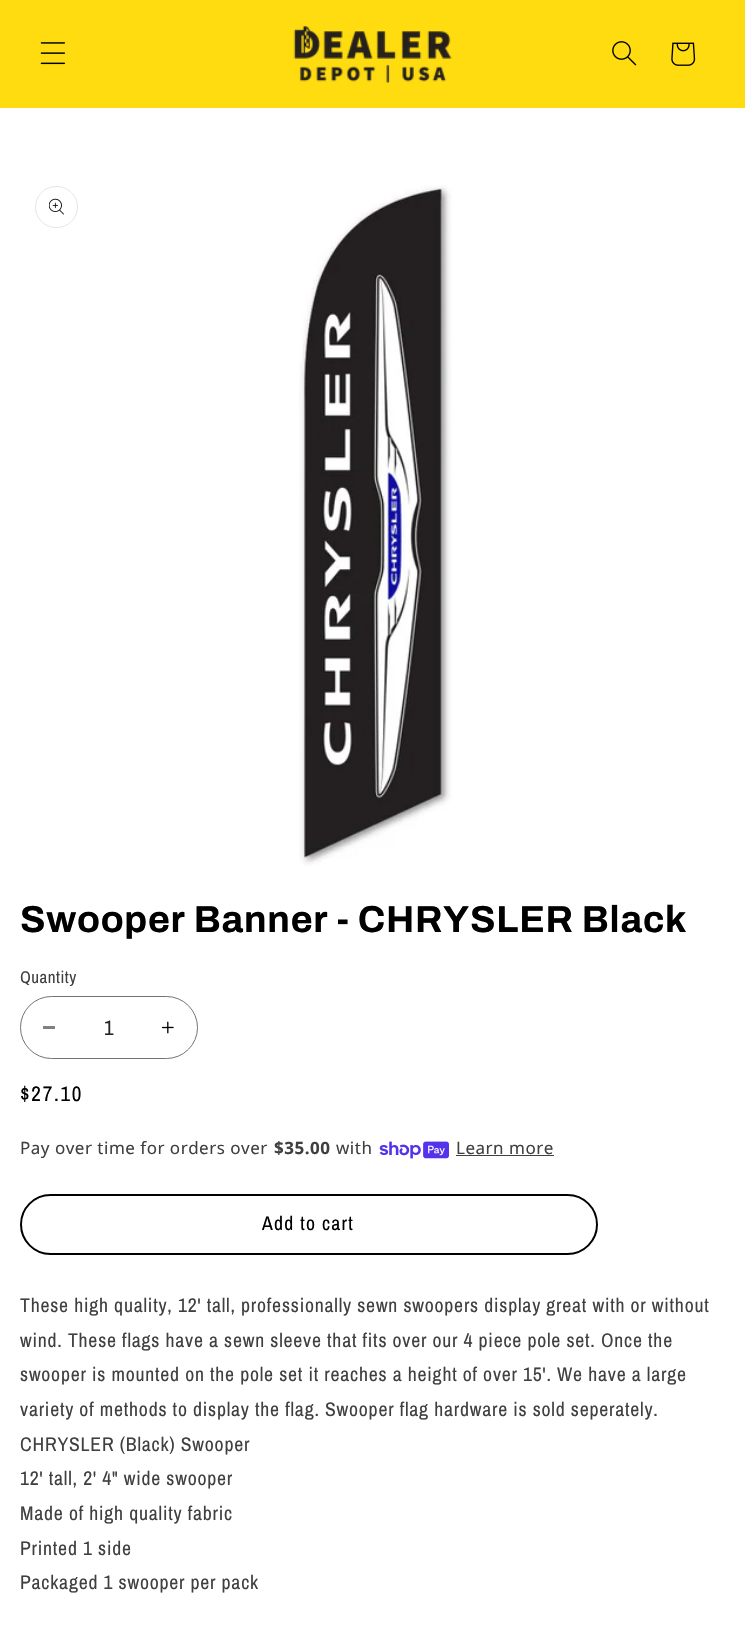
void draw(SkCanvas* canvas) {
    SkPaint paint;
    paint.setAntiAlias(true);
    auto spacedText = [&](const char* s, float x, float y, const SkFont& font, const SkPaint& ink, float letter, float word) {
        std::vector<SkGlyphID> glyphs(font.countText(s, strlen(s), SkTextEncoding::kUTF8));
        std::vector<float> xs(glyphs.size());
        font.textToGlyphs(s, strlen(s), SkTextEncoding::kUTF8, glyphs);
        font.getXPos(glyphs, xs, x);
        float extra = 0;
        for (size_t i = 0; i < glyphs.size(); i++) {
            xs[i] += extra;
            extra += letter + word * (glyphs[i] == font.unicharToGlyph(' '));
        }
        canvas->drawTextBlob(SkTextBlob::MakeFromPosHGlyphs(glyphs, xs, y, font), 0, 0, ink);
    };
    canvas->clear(0xFFFFFFFF);
    paint.setColor(0xFFFFDC10);
    canvas->drawRect(SkRect::MakeXYWH(0, 0, 745, 108), paint);
    canvas->drawImageRect(SkImages::DeferredFromEncodedData(SkData::MakeFromFileName("img1.png")), SkRect::MakeXYWH(40, 42, 26, 23), SkSamplingOptions());
    canvas->drawImageRect(SkImages::DeferredFromEncodedData(SkData::MakeFromFileName("img2.png")), SkRect::MakeXYWH(293, 25, 159, 58), SkSamplingOptions());
    canvas->drawImageRect(SkImages::DeferredFromEncodedData(SkData::MakeFromFileName("img3.png")), SkRect::MakeXYWH(612, 41, 25, 25), SkSamplingOptions());
    canvas->drawImageRect(SkImages::DeferredFromEncodedData(SkData::MakeFromFileName("img4.png")), SkRect::MakeXYWH(671, 42, 25, 24), SkSamplingOptions());
    paint.setStyle(SkPaint::kStroke_Style);
    paint.setStrokeWidth(1);
    paint.setColor(0xFFE6E6E6);
    canvas->drawRoundRect(SkRect::MakeXYWH(35.5f, 186.5f, 42, 41), 20.5f, 20.5f, paint);
    canvas->drawImageRect(SkImages::DeferredFromEncodedData(SkData::MakeFromFileName("img5.png")), SkRect::MakeXYWH(49, 198, 15, 17), SkSamplingOptions());
    canvas->drawImageRect(SkImages::DeferredFromEncodedData(SkData::MakeFromFileName("img6.png")), SkRect::MakeXYWH(299, 185, 153, 681), SkSamplingOptions());
    SkFont font1(fontMgr->matchFamilyStyle("Archivo", SkFontStyle::Bold()), 37.5f);
    font1.setSubpixel(true);
    paint.setStyle(SkPaint::kFill_Style);
    paint.setColor(0xFF000000);
    spacedText("Swooper Banner - CHRYSLER Black", 20, 932, font1, paint, 0.75f, 0);
    SkFont font2(fontMgr->matchFamilyStyle("Archivo Narrow", SkFontStyle::Normal()), 17);
    font2.setSubpixel(true);
    paint.setColor(0xFF404040);
    spacedText("Quantity", 20, 983, font2, paint, 0.5f, 0);
    paint.setColor(0xFF808080);
    canvas->drawRect(SkRect::MakeXYWH(43, 1026, 12, 3), paint);
    canvas->drawImageRect(SkImages::DeferredFromEncodedData(SkData::MakeFromFileName("img7.png")), SkRect::MakeXYWH(161, 1021, 13, 13), SkSamplingOptions());
    paint.setStyle(SkPaint::kStroke_Style);
    paint.setColor(0xFF737373);
    canvas->drawRoundRect(SkRect::MakeXYWH(20.5f, 996.5f, 177, 62), 31, 31, paint);
    SkFont font3(fontMgr->matchFamilyStyle("Archivo Narrow", SkFontStyle::Normal()), 21);
    font3.setSubpixel(true);
    paint.setStyle(SkPaint::kFill_Style);
    paint.setColor(0xFF262626);
    canvas->drawString("1", 104, 1035, font3, paint);
    paint.setColor(0xFF000000);
    spacedText("$27.10", 20, 1101, font3, paint, 1.75f, 0);
    SkFont font4(fontMgr->matchFamilyStyle("Noto Sans", SkFontStyle::Normal()), 17);
    font4.setSubpixel(true);
    paint.setColor(0xFF404040);
    spacedText("Pay over time for orders over", 20, 1154, font4, paint, 0.5f, 0);
    SkFont font5(fontMgr->matchFamilyStyle("Noto Sans", SkFontStyle::Bold()), 17);
    font5.setSubpixel(true);
    spacedText("$35.00", 274, 1154, font5, paint, 0.5f, 0);
    spacedText("with", 336, 1154, font4, paint, 0.5f, 0);
    canvas->drawImageRect(SkImages::DeferredFromEncodedData(SkData::MakeFromFileName("img8.png")), SkRect::MakeXYWH(379, 1141, 70, 18), SkSamplingOptions());
    spacedText("Learn more", 456, 1154, font4, paint, 0.5f, 0);
    canvas->drawRect(SkRect::MakeXYWH(456, 1155, 98, 1), paint);
    paint.setStyle(SkPaint::kStroke_Style);
    paint.setStrokeWidth(2);
    paint.setColor(0xFF000000);
    canvas->drawRoundRect(SkRect::MakeXYWH(21, 1195, 576, 59), 29.5f, 29.5f, paint);
    SkFont font6(fontMgr->matchFamilyStyle("Archivo Narrow", SkFontStyle::Normal()), 19.7f);
    font6.setSubpixel(true);
    paint.setStyle(SkPaint::kFill_Style);
    spacedText("Add to cart", 262, 1230, font6, paint, 1.25f, 0);
    paint.setColor(0xFF404040);
    spacedText("These high quality, 12' tall, professionally sewn swoopers display great with or without", 20, 1312, font6, paint, 0.8f, 0);
    spacedText("wind. These flags have a sewn sleeve that fits over our 4 piece pole set. Once the", 20, 1347, font6, paint, 0.8f, 0);
    spacedText("swooper is mounted on the pole set it reaches a height of over 15'. We have a large", 20, 1381, font6, paint, 0.8f, 0);
    spacedText("variety of methods to display the flag. Swooper flag hardware is sold seperately.", 20, 1416, font6, paint, 0.8f, 0);
    spacedText("CHRYSLER (Black) Swooper", 20, 1451, font6, paint, 0.8f, 0);
    spacedText("12' tall, 2' 4\" wide swooper", 20, 1485, font6, paint, 0.8f, 0);
    spacedText("Made of high quality fabric", 20, 1520, font6, paint, 0.8f, 0);
    spacedText("Printed 1 side", 20, 1555, font6, paint, 0.8f, 0);
    spacedText("Packaged 1 swooper per pack", 20, 1589, font6, paint, 0.8f, 0);
}
